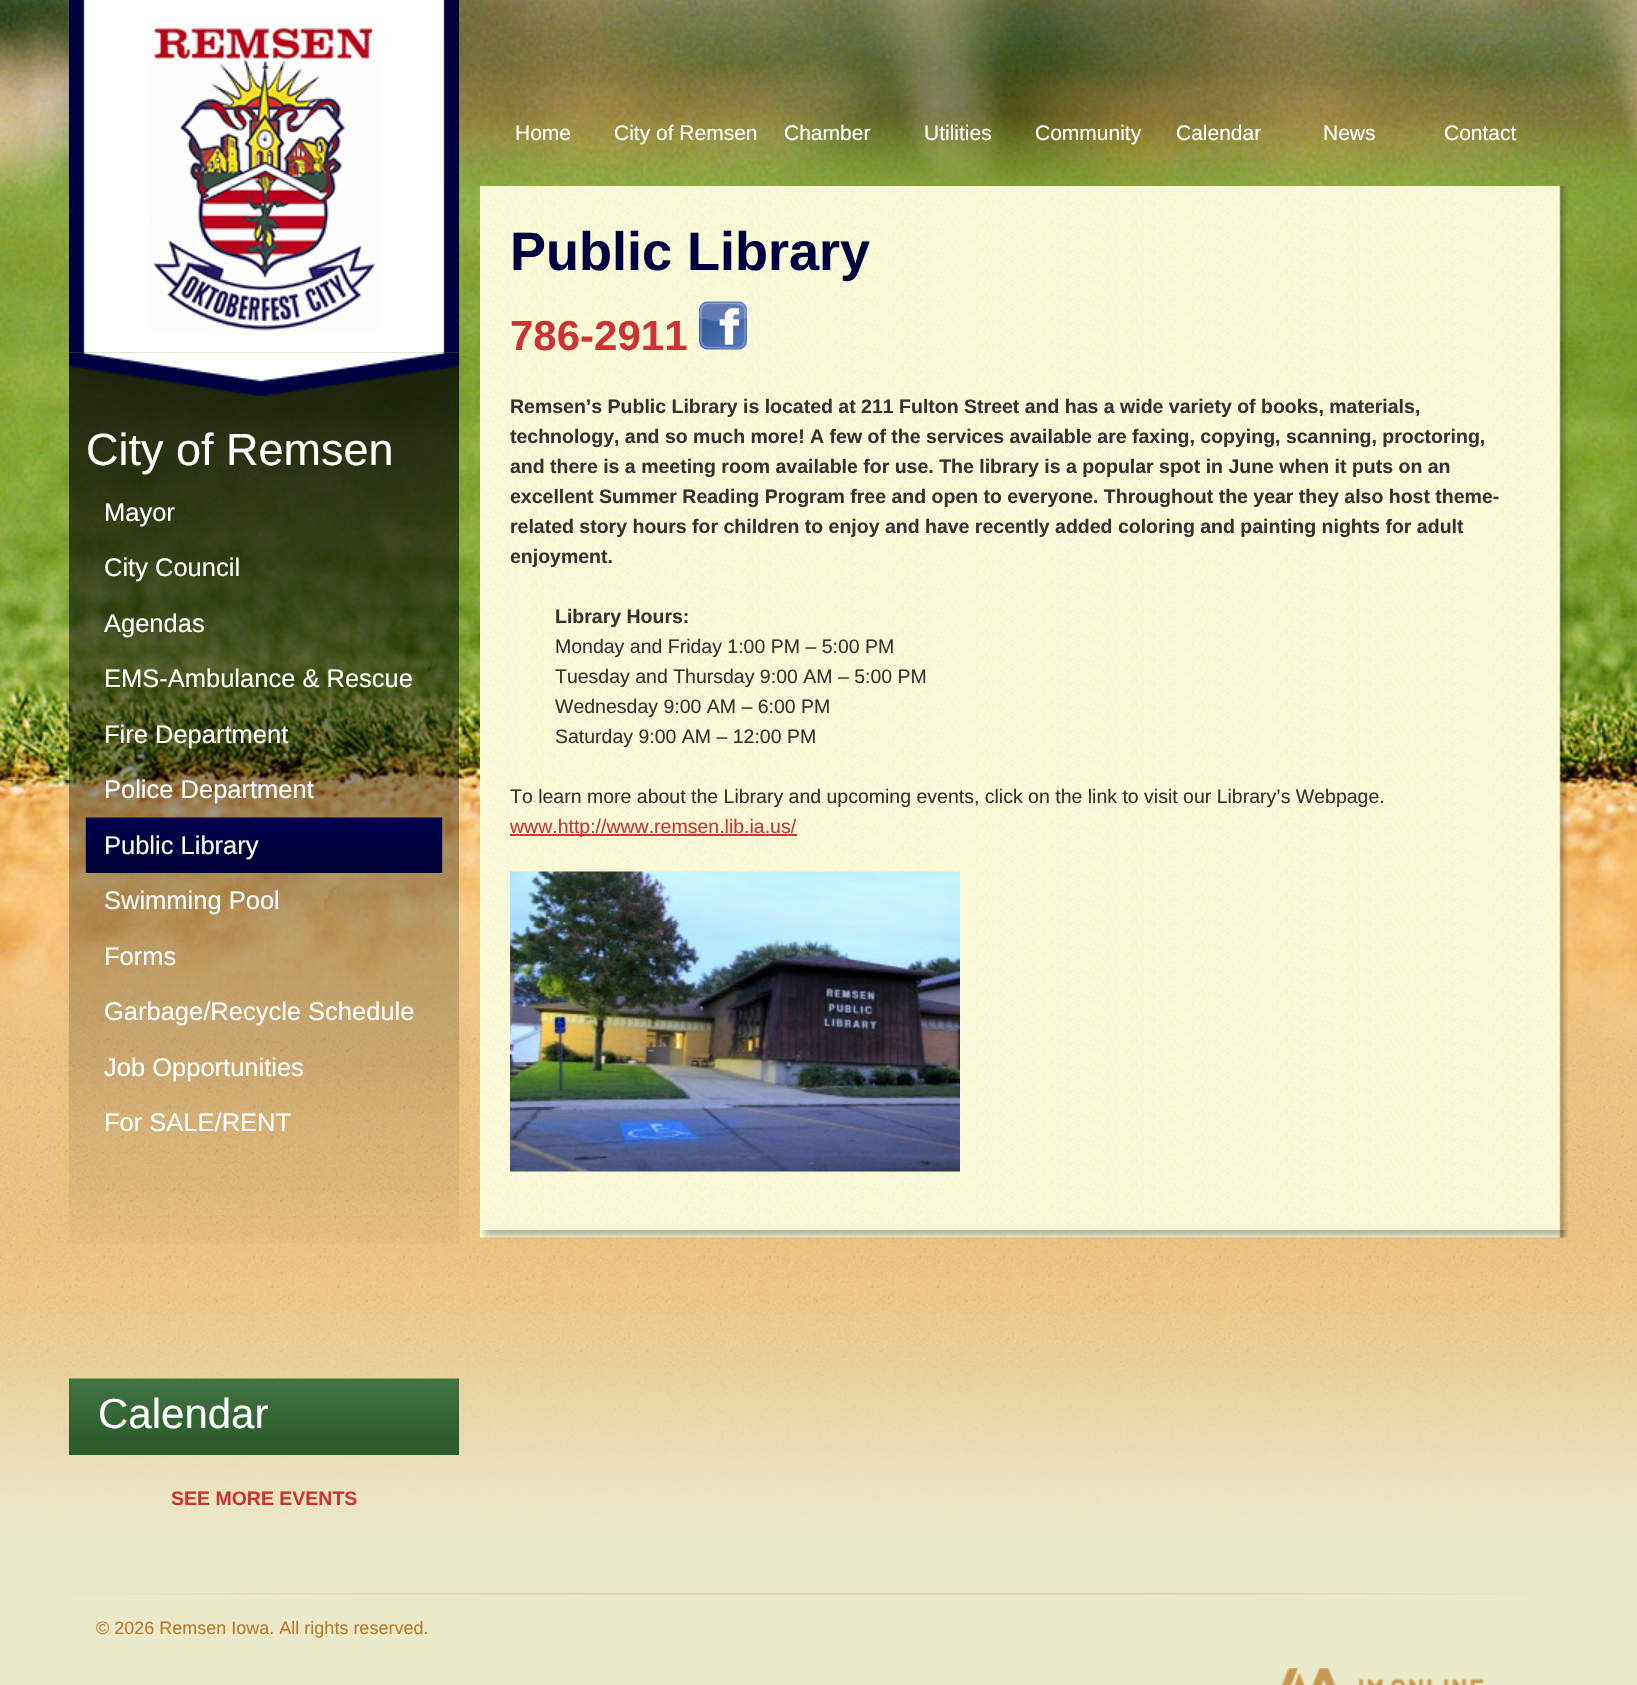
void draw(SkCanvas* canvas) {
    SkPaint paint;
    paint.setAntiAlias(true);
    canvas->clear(0xFFFFFFFF);
    canvas->drawImageRect(SkImages::DeferredFromEncodedData(SkData::MakeFromFileName("img1.png")), SkRect::MakeXYWH(0, 0, 1637, 1685), SkSamplingOptions());
    canvas->drawImageRect(SkImages::DeferredFromEncodedData(SkData::MakeFromFileName("img5.png")), SkRect::MakeXYWH(69, 366, 390, 878), SkSamplingOptions());
    canvas->drawImageRect(SkImages::DeferredFromEncodedData(SkData::MakeFromFileName("img2.png")), SkRect::MakeXYWH(69, 352, 390, 44), SkSamplingOptions());
    canvas->drawImageRect(SkImages::DeferredFromEncodedData(SkData::MakeFromFileName("img3.png")), SkRect::MakeXYWH(69, 0, 390, 353), SkSamplingOptions());
    canvas->drawImageRect(SkImages::DeferredFromEncodedData(SkData::MakeFromFileName("img4.png")), SkRect::MakeXYWH(149, 23, 231, 309), SkSamplingOptions());
    SkFont font1(fontMgr->matchFamilyStyle("Liberation Sans", SkFontStyle::Normal()), 45);
    font1.setSubpixel(true);
    paint.setColor(0xFFFFFFFF);
    canvas->drawString("City of Remsen", 86, 465, font1, paint);
    SkFont font2(fontMgr->matchFamilyStyle("Liberation Sans", SkFontStyle::Normal()), 25.5f);
    font2.setSubpixel(true);
    canvas->drawString("Mayor", 104, 521, font2, paint);
    canvas->drawString("City Council", 104, 576, font2, paint);
    canvas->drawString("Agendas", 104, 632, font2, paint);
    canvas->drawString("EMS-Ambulance & Rescue", 104, 687, font2, paint);
    canvas->drawString("Fire Department", 104, 743, font2, paint);
    canvas->drawString("Police Department", 104, 798, font2, paint);
    canvas->drawImageRect(SkImages::DeferredFromEncodedData(SkData::MakeFromFileName("img6.png")), SkRect::MakeXYWH(85, 817, 358, 56), SkSamplingOptions());
    canvas->drawString("Public Library", 104, 854, font2, paint);
    canvas->drawString("Swimming Pool", 104, 909, font2, paint);
    canvas->drawString("Forms", 104, 965, font2, paint);
    canvas->drawString("Garbage/Recycle Schedule", 104, 1020, font2, paint);
    canvas->drawString("Job Opportunities", 104, 1076, font2, paint);
    canvas->drawString("For SALE/RENT", 104, 1131, font2, paint);
    canvas->drawImageRect(SkImages::DeferredFromEncodedData(SkData::MakeFromFileName("img7.png")), SkRect::MakeXYWH(69, 1378, 390, 77), SkSamplingOptions());
    SkFont font3(fontMgr->matchFamilyStyle("Liberation Sans", SkFontStyle::Normal()), 42);
    font3.setSubpixel(true);
    canvas->drawString("Calendar", 98, 1428, font3, paint);
    SkFont font4(fontMgr->matchFamilyStyle("Liberation Sans", SkFontStyle::Bold()), 19.5f);
    font4.setSubpixel(true);
    paint.setColor(0xFFCC3333);
    canvas->drawString("SEE MORE EVENTS", 171, 1505, font4, paint);
    SkFont font5(fontMgr->matchFamilyStyle("Liberation Sans", SkFontStyle::Normal()), 21);
    font5.setSubpixel(true);
    paint.setColor(0xFFFFFFFF);
    canvas->drawString("Home", 515, 140, font5, paint);
    canvas->drawString("City of Remsen", 614, 140, font5, paint);
    canvas->drawString("Chamber", 784, 140, font5, paint);
    canvas->drawString("Utilities", 924, 140, font5, paint);
    canvas->drawString("Community", 1035, 140, font5, paint);
    canvas->drawString("Calendar", 1176, 140, font5, paint);
    canvas->drawString("News", 1323, 140, font5, paint);
    canvas->drawString("Contact", 1444, 140, font5, paint);
    canvas->drawImageRect(SkImages::DeferredFromEncodedData(SkData::MakeFromFileName("img8.png")), SkRect::MakeXYWH(480, 186, 1088, 1052), SkSamplingOptions());
    SkFont font6(fontMgr->matchFamilyStyle("Liberation Sans", SkFontStyle::Bold()), 54);
    font6.setSubpixel(true);
    paint.setColor(0xFF000040);
    canvas->drawString("Public Library", 510, 270, font6, paint);
    SkFont font7(fontMgr->matchFamilyStyle("Liberation Sans", SkFontStyle::Bold()), 42);
    font7.setSubpixel(true);
    paint.setColor(0xFFCC3333);
    canvas->drawString("786-2911", 510, 350, font7, paint);
    canvas->drawImageRect(SkImages::DeferredFromEncodedData(SkData::MakeFromFileName("img9.png")), SkRect::MakeXYWH(699, 301, 48, 49), SkSamplingOptions());
    paint.setColor(0xFF333333);
    canvas->drawString("Remsen’s Public Library is located at 211 Fulton Street and has a wide variety of books, materials,", 510, 413, font4, paint);
    canvas->drawString("technology, and so much more! A few of the services available are faxing, copying, scanning, proctoring,", 510, 443, font4, paint);
    canvas->drawString("and there is a meeting room available for use. The library is a popular spot in June when it puts on an", 510, 473, font4, paint);
    canvas->drawString("excellent Summer Reading Program free and open to everyone. Throughout the year they also host theme-", 510, 503, font4, paint);
    canvas->drawString("related story hours for children to enjoy and have recently added coloring and painting nights for adult", 510, 533, font4, paint);
    canvas->drawString("enjoyment.", 510, 563, font4, paint);
    canvas->drawString("Library Hours:", 555, 623, font4, paint);
    SkFont font8(fontMgr->matchFamilyStyle("Liberation Sans", SkFontStyle::Normal()), 19.5f);
    font8.setSubpixel(true);
    canvas->drawString("Monday and Friday 1:00 PM – 5:00 PM", 555, 653, font8, paint);
    canvas->drawString("Tuesday and Thursday 9:00 AM – 5:00 PM", 555, 683, font8, paint);
    canvas->drawString("Wednesday 9:00 AM – 6:00 PM", 555, 713, font8, paint);
    canvas->drawString("Saturday 9:00 AM – 12:00 PM", 555, 743, font8, paint);
    canvas->drawString("To learn more about the Library and upcoming events, click on the link to visit our Library’s Webpage.", 510, 803, font8, paint);
    paint.setColor(0xFFCC3333);
    canvas->drawRect(SkRect::MakeXYWH(510, 834, 287, 2), paint);
    canvas->drawString("www.http://www.remsen.lib.ia.us/", 510, 833, font8, paint);
    canvas->drawImageRect(SkImages::DeferredFromEncodedData(SkData::MakeFromFileName("img10.png")), SkRect::MakeXYWH(510, 871, 450, 301), SkSamplingOptions());
    canvas->drawImageRect(SkImages::DeferredFromEncodedData(SkData::MakeFromFileName("img11.png")), SkRect::MakeXYWH(481, 1230, 1087, 9), SkSamplingOptions());
    canvas->drawImageRect(SkImages::DeferredFromEncodedData(SkData::MakeFromFileName("img12.png")), SkRect::MakeXYWH(70, 1592, 1462, 3), SkSamplingOptions());
    SkFont font9(fontMgr->matchFamilyStyle("Liberation Sans", SkFontStyle::Normal()), 18);
    font9.setSubpixel(true);
    paint.setColor(0xFFBA7828);
    canvas->drawString("© 2026 Remsen Iowa. All rights reserved.", 96, 1634, font9, paint);
    canvas->drawImageRect(SkImages::DeferredFromEncodedData(SkData::MakeFromFileName("img13.png")), SkRect::MakeXYWH(1281, 1668, 203, 17), SkSamplingOptions());
}
